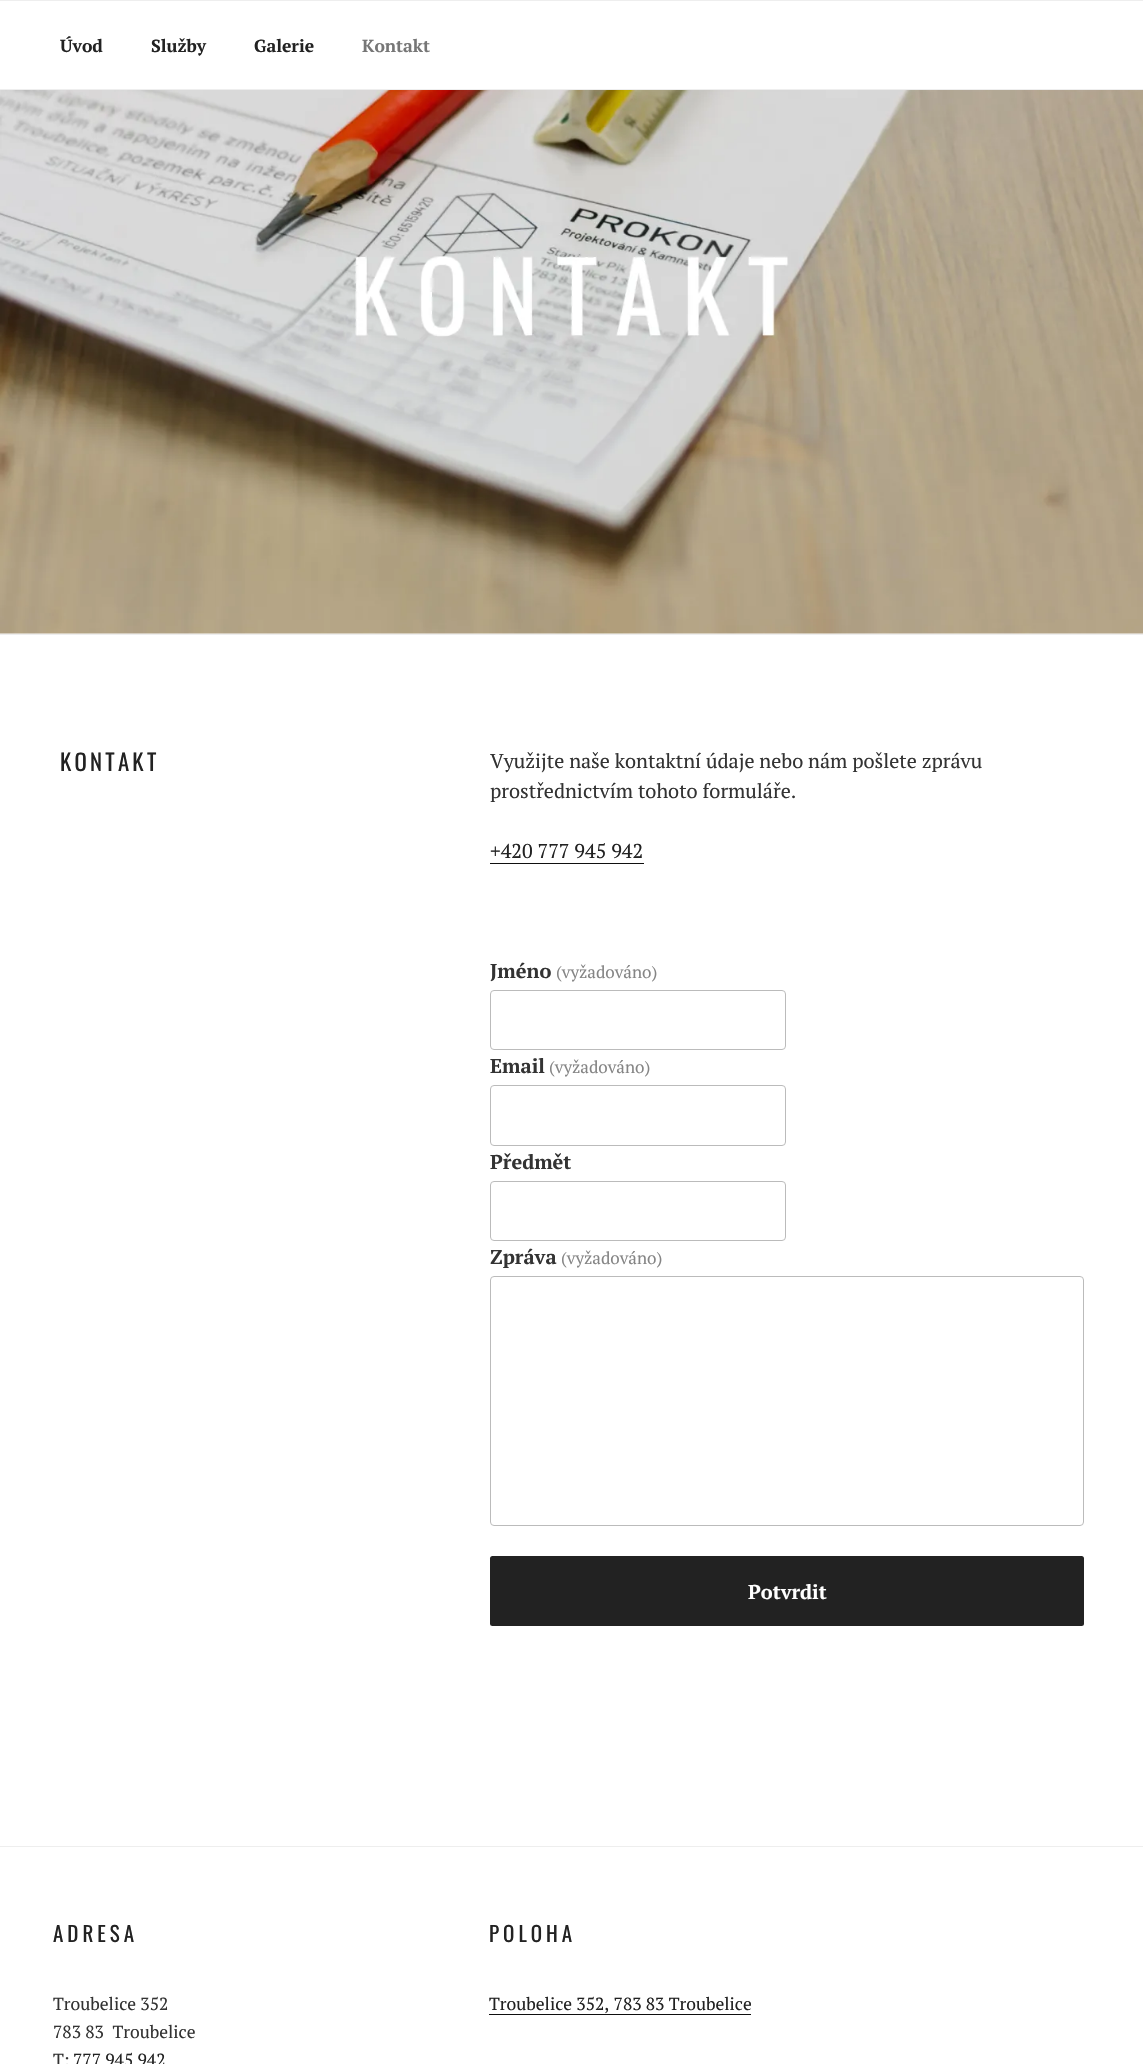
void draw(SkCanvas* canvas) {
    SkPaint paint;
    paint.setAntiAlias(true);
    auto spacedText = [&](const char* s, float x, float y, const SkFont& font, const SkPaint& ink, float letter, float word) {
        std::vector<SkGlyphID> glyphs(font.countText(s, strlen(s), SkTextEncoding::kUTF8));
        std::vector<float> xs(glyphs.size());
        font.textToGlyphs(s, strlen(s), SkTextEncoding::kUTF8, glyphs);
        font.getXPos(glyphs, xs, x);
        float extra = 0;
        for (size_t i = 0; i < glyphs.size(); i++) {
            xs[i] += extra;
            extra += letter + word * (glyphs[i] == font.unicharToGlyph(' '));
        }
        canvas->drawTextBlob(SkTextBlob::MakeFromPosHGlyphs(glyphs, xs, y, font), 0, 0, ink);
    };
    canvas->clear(0xFFFFFFFF);
    paint.setColor(0xFFEEEEEE);
    canvas->drawRect(SkRect::MakeXYWH(0, 0, 1143, 1), paint);
    canvas->drawRect(SkRect::MakeXYWH(0, 89, 1143, 1), paint);
    SkFont font1(fontMgr->matchFamilyStyle("PT Serif", SkFontStyle::Bold()), 17.5f);
    font1.setSubpixel(true);
    paint.setColor(0xFF222222);
    canvas->drawString("Úvod", 60, 52, font1, paint);
    canvas->drawString("Služby", 151, 52, font1, paint);
    canvas->drawString("Galerie", 254, 52, font1, paint);
    paint.setColor(0xFF767676);
    canvas->drawString("Kontakt", 362, 52, font1, paint);
    paint.setColor(0xFFFAFAFA);
    canvas->drawRect(SkRect::MakeXYWH(0, 633, 1143, 1), paint);
    paint.setColor(0xFFEEEEEE);
    canvas->drawRect(SkRect::MakeXYWH(0, 634, 1143, 1), paint);
    canvas->drawImageRect(SkImages::DeferredFromEncodedData(SkData::MakeFromFileName("img1.png")), SkRect::MakeXYWH(0, 90, 1143, 544), SkSamplingOptions());
    SkFont font2(fontMgr->matchFamilyStyle("Oswald", SkFontStyle::Normal()), 22.75f);
    font2.setSubpixel(true);
    paint.setColor(0xFF222222);
    spacedText("KONTAKT", 60, 771, font2, paint, 3.25f, 0);
    SkFont font3(fontMgr->matchFamilyStyle("PT Serif", SkFontStyle::Normal()), 20);
    font3.setSubpixel(true);
    paint.setColor(0xFF333333);
    canvas->drawString("Využijte naše kontaktní údaje nebo nám pošlete zprávu", 490, 768, font3, paint);
    canvas->drawString("prostřednictvím tohoto formuláře.", 490, 798, font3, paint);
    paint.setColor(0xFF222222);
    canvas->drawString("+420 777 945 942", 490, 858, font3, paint);
    paint.setColor(0xFF0F0F0F);
    canvas->drawRect(SkRect::MakeXYWH(490, 863, 154, 1), paint);
    SkFont font4(fontMgr->matchFamilyStyle("PT Serif", SkFontStyle::Bold()), 20);
    font4.setSubpixel(true);
    paint.setColor(0xFF333333);
    canvas->drawString("Jméno", 490, 978, font4, paint);
    SkFont font5(fontMgr->matchFamilyStyle("PT Serif", SkFontStyle::Normal()), 17);
    font5.setSubpixel(true);
    paint.setColor(0xFF858585);
    canvas->drawString("(vyžadováno)", 556, 978, font5, paint);
    paint.setStyle(SkPaint::kStroke_Style);
    paint.setStrokeWidth(1);
    paint.setColor(0xFFBBBBBB);
    canvas->drawRoundRect(SkRect::MakeXYWH(490.5f, 990.5f, 295, 59), 3.5f, 3.5f, paint);
    paint.setStyle(SkPaint::kFill_Style);
    paint.setColor(0xFF333333);
    canvas->drawString("Email", 490, 1073, font4, paint);
    paint.setColor(0xFF858585);
    canvas->drawString("(vyžadováno)", 549, 1073, font5, paint);
    paint.setStyle(SkPaint::kStroke_Style);
    paint.setColor(0xFFBBBBBB);
    canvas->drawRoundRect(SkRect::MakeXYWH(490.5f, 1085.5f, 295, 60), 3.5f, 3.5f, paint);
    paint.setStyle(SkPaint::kFill_Style);
    paint.setColor(0xFF333333);
    canvas->drawString("Předmět", 490, 1169, font4, paint);
    paint.setStyle(SkPaint::kStroke_Style);
    paint.setColor(0xFFBBBBBB);
    canvas->drawRoundRect(SkRect::MakeXYWH(490.5f, 1181.5f, 295, 59), 3.5f, 3.5f, paint);
    paint.setStyle(SkPaint::kFill_Style);
    paint.setColor(0xFF333333);
    canvas->drawString("Zpráva", 490, 1264, font4, paint);
    paint.setColor(0xFF858585);
    canvas->drawString("(vyžadováno)", 561, 1264, font5, paint);
    paint.setStyle(SkPaint::kStroke_Style);
    paint.setColor(0xFFBBBBBB);
    canvas->drawRoundRect(SkRect::MakeXYWH(490.5f, 1276.5f, 593, 249), 3.5f, 3.5f, paint);
    paint.setStyle(SkPaint::kFill_Style);
    paint.setColor(0xFF222222);
    canvas->drawRoundRect(SkRect::MakeXYWH(490, 1556, 594, 70), 2.5f, 2.5f, paint);
    paint.setColor(0xFFFFFFFF);
    canvas->drawString("Potvrdit", 748, 1599, font4, paint);
    paint.setColor(0xFFEEEEEE);
    canvas->drawRect(SkRect::MakeXYWH(0, 1846, 1143, 1), paint);
    SkFont font6(fontMgr->matchFamilyStyle("Oswald", SkFontStyle::Normal()), 21);
    font6.setSubpixel(true);
    paint.setColor(0xFF222222);
    spacedText("ADRESA", 53, 1942, font6, paint, 4, 0);
    SkFont font7(fontMgr->matchFamilyStyle("PT Serif", SkFontStyle::Normal()), 17.5f);
    font7.setSubpixel(true);
    paint.setColor(0xFF333333);
    canvas->drawString("Troubelice 352", 53, 2010, font7, paint);
    canvas->drawString("783 83  Troubelice", 53, 2038, font7, paint);
    canvas->drawString("T:", 53, 2066, font7, paint);
    paint.setColor(0xFF222222);
    canvas->drawString("777 945 942", 73, 2066, font7, paint);
    spacedText("POLOHA", 489, 1942, font6, paint, 4, 0);
    canvas->drawString("Troubelice 352, 783 83 Troubelice", 489, 2010, font7, paint);
    paint.setColor(0xFF0F0F0F);
    canvas->drawRect(SkRect::MakeXYWH(489, 2014, 262, 1), paint);
}
